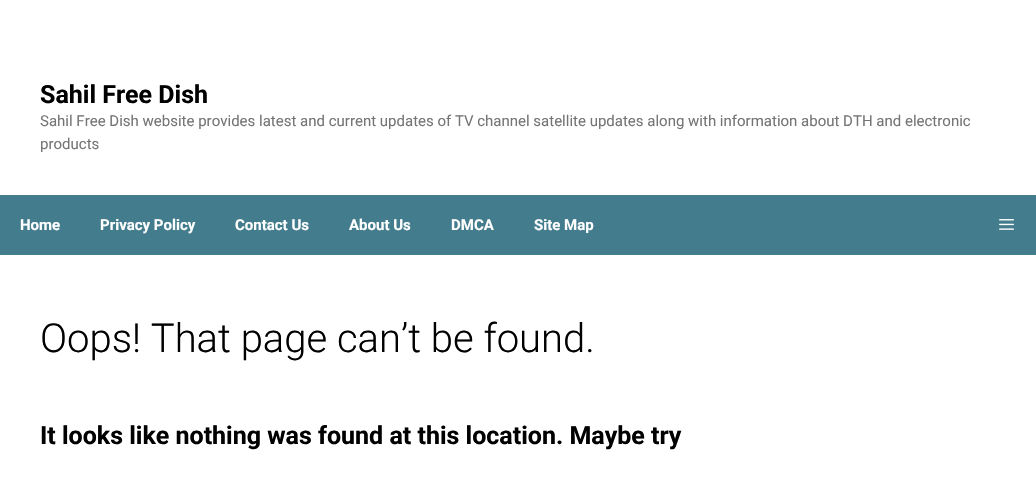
void draw(SkCanvas* canvas) {
    SkPaint paint;
    paint.setAntiAlias(true);
    canvas->clear(0xFFFFFFFF);
    SkFont font1(fontMgr->matchFamilyStyle("Roboto", SkFontStyle::Bold()), 25);
    font1.setSubpixel(true);
    paint.setColor(0xFF000000);
    canvas->drawString("Sahil Free Dish", 40, 103, font1, paint);
    SkFont font2(fontMgr->matchFamilyStyle("Roboto", SkFontStyle::Normal()), 15);
    font2.setSubpixel(true);
    paint.setColor(0xFF757575);
    canvas->drawString("Sahil Free Dish website provides latest and current updates of TV channel satellite updates along with information about DTH and electronic", 40, 126, font2, paint);
    canvas->drawString("products", 40, 149, font2, paint);
    paint.setColor(0xFF437D8D);
    canvas->drawRect(SkRect::MakeXYWH(0, 195, 1036, 60), paint);
    SkFont font3(fontMgr->matchFamilyStyle("Roboto", SkFontStyle::Bold()), 15);
    font3.setSubpixel(true);
    paint.setColor(0xFFFFFFFF);
    canvas->drawString("Home", 20, 230, font3, paint);
    canvas->drawString("Privacy Policy", 100, 230, font3, paint);
    canvas->drawString("Contact Us", 235, 230, font3, paint);
    canvas->drawString("About Us", 349, 230, font3, paint);
    canvas->drawString("DMCA", 451, 230, font3, paint);
    canvas->drawString("Site Map", 534, 230, font3, paint);
    canvas->drawImageRect(SkImages::DeferredFromEncodedData(SkData::MakeFromFileName("img1.png")), SkRect::MakeXYWH(999, 219, 15, 11), SkSamplingOptions());
    SkFont font4(fontMgr->matchFamilyStyle("Roboto", SkFontStyle(300, SkFontStyle::kNormal_Width, SkFontStyle::kUpright_Slant)), 40);
    font4.setSubpixel(true);
    paint.setColor(0xFF000000);
    canvas->drawString("Oops! That page can’t be found.", 40, 352, font4, paint);
    canvas->drawString("It looks like nothing was found at this location. Maybe try", 40, 444, font1, paint);
}
